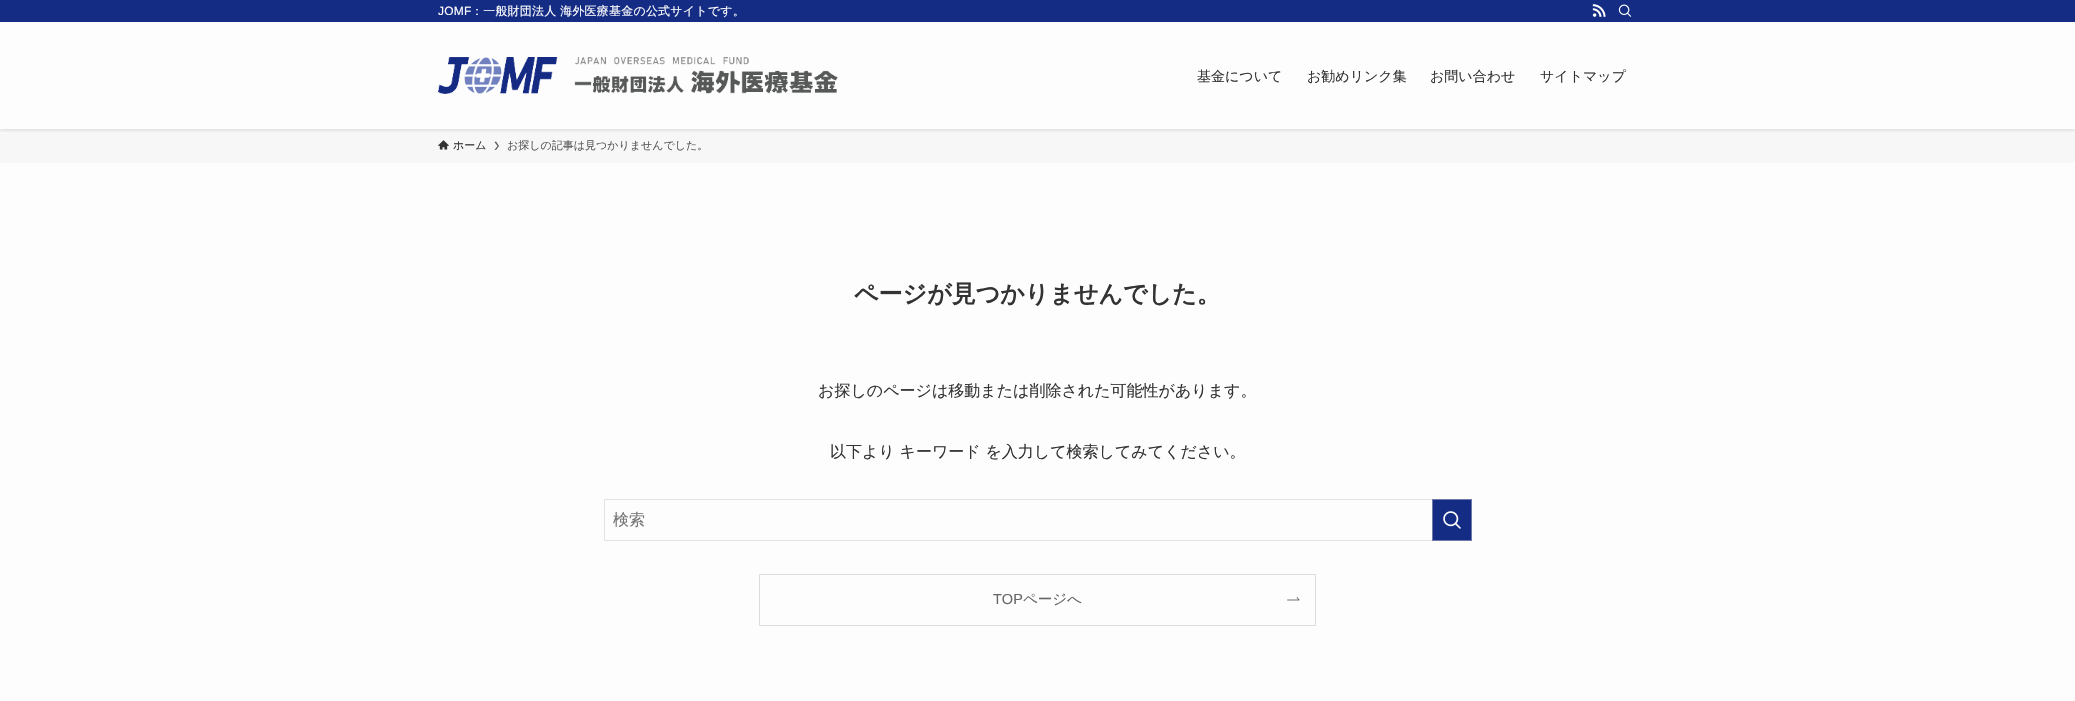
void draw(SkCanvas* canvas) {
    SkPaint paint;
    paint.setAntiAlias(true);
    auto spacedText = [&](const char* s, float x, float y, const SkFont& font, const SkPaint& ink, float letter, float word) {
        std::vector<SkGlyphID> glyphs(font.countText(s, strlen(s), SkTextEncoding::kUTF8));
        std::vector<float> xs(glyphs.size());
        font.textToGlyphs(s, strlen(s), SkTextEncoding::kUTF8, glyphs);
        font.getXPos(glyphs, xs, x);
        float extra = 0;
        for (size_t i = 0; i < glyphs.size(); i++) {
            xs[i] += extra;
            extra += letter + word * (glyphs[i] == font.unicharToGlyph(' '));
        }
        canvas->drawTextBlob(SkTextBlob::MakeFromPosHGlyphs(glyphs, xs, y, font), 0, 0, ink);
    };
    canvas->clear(0xFFFDFDFD);
    paint.setColor(0xFFF7F7F7);
    canvas->drawRect(SkRect::MakeXYWH(0, 129, 2075, 34), paint);
    canvas->save();
    canvas->clipRect(SkRect::MakeXYWH(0, 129, 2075, 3));
    paint.setColor(0x1F000000);
    paint.setMaskFilter(SkMaskFilter::MakeBlur(kNormal_SkBlurStyle, 2));
    canvas->drawRect(SkRect::MakeXYWH(0, 1, 2075, 129), paint);
    paint.setMaskFilter(nullptr);
    canvas->restore();
    paint.setColor(0xFF142C84);
    canvas->drawRect(SkRect::MakeXYWH(0, 0, 2075, 22), paint);
    SkFont font1(fontMgr->matchFamilyStyle("Liberation Sans", SkFontStyle::Normal()), 12);
    font1.setSubpixel(true);
    paint.setColor(0xFFFFFFFF);
    spacedText("JOMF", 438, 15, font1, paint, 0.2f, 0);
    SkFont font2(fontMgr->matchFamilyStyle("WenQuanYi Zen Hei", SkFontStyle(500, SkFontStyle::kNormal_Width, SkFontStyle::kUpright_Slant)), 12);
    font2.setSubpixel(true);
    spacedText("：一般財団法人 海外医療基金の公式サイトです。", 471, 15, font2, paint, 0.2f, 0);
    canvas->drawImageRect(SkImages::DeferredFromEncodedData(SkData::MakeFromFileName("img1.png")), SkRect::MakeXYWH(1592, 4, 14, 13), SkSamplingOptions());
    canvas->drawImageRect(SkImages::DeferredFromEncodedData(SkData::MakeFromFileName("img2.png")), SkRect::MakeXYWH(1618, 4, 14, 13), SkSamplingOptions());
    canvas->drawImageRect(SkImages::DeferredFromEncodedData(SkData::MakeFromFileName("img3.png")), SkRect::MakeXYWH(438, 57, 400, 37), SkSamplingOptions());
    SkFont font3(fontMgr->matchFamilyStyle("WenQuanYi Zen Hei", SkFontStyle(500, SkFontStyle::kNormal_Width, SkFontStyle::kUpright_Slant)), 14);
    font3.setSubpixel(true);
    paint.setColor(0xFF333333);
    canvas->drawString("基金について", 1197, 81, font3, paint);
    canvas->drawString("お勧めリンク集", 1307, 81, font3, paint);
    canvas->drawString("お問い合わせ", 1430, 81, font3, paint);
    canvas->drawString("サイトマップ", 1540, 81, font3, paint);
    canvas->drawImageRect(SkImages::DeferredFromEncodedData(SkData::MakeFromFileName("img4.png")), SkRect::MakeXYWH(438, 140, 11, 10), SkSamplingOptions());
    SkFont font4(fontMgr->matchFamilyStyle("WenQuanYi Zen Hei", SkFontStyle(500, SkFontStyle::kNormal_Width, SkFontStyle::kUpright_Slant)), 11);
    font4.setSubpixel(true);
    canvas->drawString("ホーム", 453, 149, font4, paint);
    paint.setColor(0xFF5A5A5A);
    canvas->drawPath(SkPathBuilder().moveTo(496, 141.5f).lineTo(494.5f, 142).lineTo(497.5f, 146).lineTo(494.5f, 150).lineTo(496, 150).lineTo(499, 146).close().detach(), paint);
    canvas->drawString("お探しの記事は見つかりませんでした。", 507, 149, font4, paint);
    SkFont font5(fontMgr->matchFamilyStyle("WenQuanYi Zen Hei", SkFontStyle::Bold()), 24);
    font5.setSubpixel(true);
    paint.setColor(0xFF333333);
    canvas->drawString("ページが見つかりませんでした。", 854, 302, font5, paint);
    SkFont font6(fontMgr->matchFamilyStyle("WenQuanYi Zen Hei", SkFontStyle(500, SkFontStyle::kNormal_Width, SkFontStyle::kUpright_Slant)), 16);
    font6.setSubpixel(true);
    canvas->drawString("お探しのページは移動または削除された可能性があります。", 818, 396, font6, paint);
    canvas->drawString("以下より キーワード を入力して検索してみてください。", 830, 457, font6, paint);
    paint.setStyle(SkPaint::kStroke_Style);
    paint.setStrokeWidth(1);
    paint.setColor(0xFFE3E3E3);
    canvas->drawRect(SkRect::MakeXYWH(604.5f, 499.5f, 867, 41), paint);
    paint.setStyle(SkPaint::kFill_Style);
    paint.setColor(0xFF757575);
    canvas->drawString("検索", 613, 525, font6, paint);
    paint.setColor(0xFF142C84);
    canvas->drawRect(SkRect::MakeXYWH(1432.5f, 499.5f, 39, 41), paint);
    paint.setStyle(SkPaint::kStroke_Style);
    paint.setColor(0xFF6E7AA6);
    canvas->drawRect(SkRect::MakeXYWH(1432.5f, 499.5f, 39, 41), paint);
    canvas->drawImageRect(SkImages::DeferredFromEncodedData(SkData::MakeFromFileName("img5.png")), SkRect::MakeXYWH(1443, 511, 18, 18), SkSamplingOptions());
    paint.setColor(0xFFDCDCDC);
    canvas->drawRect(SkRect::MakeXYWH(759.5f, 574.5f, 556, 51), paint);
    SkFont font7(fontMgr->matchFamilyStyle("Liberation Sans", SkFontStyle::Normal()), 14.5f);
    font7.setSubpixel(true);
    paint.setStyle(SkPaint::kFill_Style);
    paint.setColor(0xFF666666);
    canvas->drawString("TOP", 993, 604, font7, paint);
    SkFont font8(fontMgr->matchFamilyStyle("WenQuanYi Zen Hei", SkFontStyle(500, SkFontStyle::kNormal_Width, SkFontStyle::kUpright_Slant)), 14.5f);
    font8.setSubpixel(true);
    canvas->drawString("ページへ", 1023, 604, font8, paint);
    canvas->drawImageRect(SkImages::DeferredFromEncodedData(SkData::MakeFromFileName("img6.png")), SkRect::MakeXYWH(1287, 597, 13, 4), SkSamplingOptions());
}
